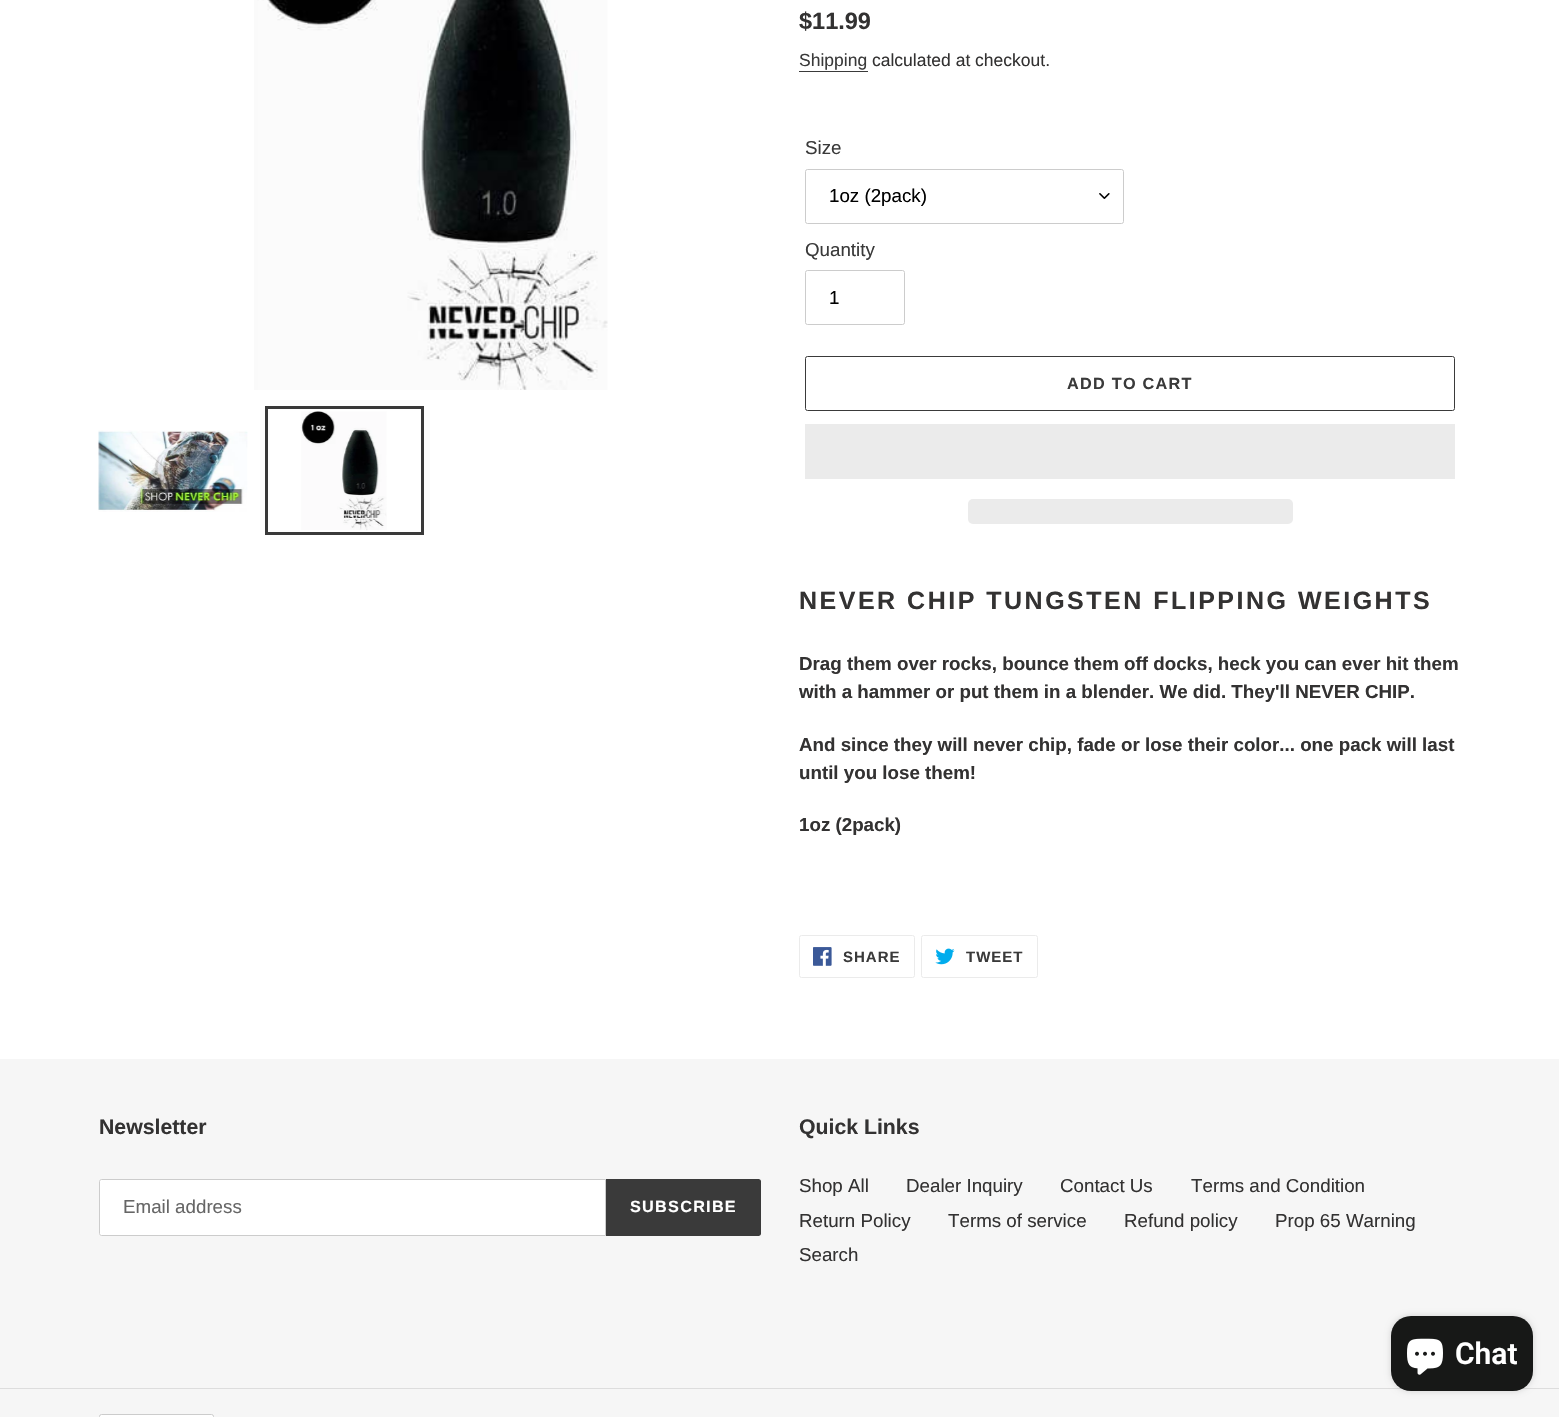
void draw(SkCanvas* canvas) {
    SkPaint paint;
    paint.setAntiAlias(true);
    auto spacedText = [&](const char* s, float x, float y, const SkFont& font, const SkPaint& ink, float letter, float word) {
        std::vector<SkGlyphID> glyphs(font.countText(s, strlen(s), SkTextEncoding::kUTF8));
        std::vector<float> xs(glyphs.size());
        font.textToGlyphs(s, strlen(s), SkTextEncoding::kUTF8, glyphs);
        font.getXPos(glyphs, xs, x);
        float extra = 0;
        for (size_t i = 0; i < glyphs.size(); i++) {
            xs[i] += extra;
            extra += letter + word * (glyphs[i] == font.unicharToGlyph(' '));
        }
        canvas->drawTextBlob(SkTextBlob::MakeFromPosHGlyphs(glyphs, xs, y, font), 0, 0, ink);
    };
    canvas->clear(0xFFFFFFFF);
    canvas->drawImageRect(SkImages::DeferredFromEncodedData(SkData::MakeFromFileName("img1.png")), SkRect::MakeXYWH(254, 0, 354, 390), SkSamplingOptions());
    canvas->drawImageRect(SkImages::DeferredFromEncodedData(SkData::MakeFromFileName("img2.png")), SkRect::MakeXYWH(98, 430, 150, 82), SkSamplingOptions());
    paint.setStyle(SkPaint::kStroke_Style);
    paint.setStrokeWidth(3);
    paint.setColor(0xFF3A3A3A);
    canvas->drawRect(SkRect::MakeXYWH(266.5f, 407.5f, 156, 126), paint);
    canvas->drawImageRect(SkImages::DeferredFromEncodedData(SkData::MakeFromFileName("img3.png")), SkRect::MakeXYWH(300, 411, 87, 120), SkSamplingOptions());
    SkFont font1(fontMgr->matchFamilyStyle("Liberation Sans", SkFontStyle::Bold()), 23.5f);
    font1.setSubpixel(true);
    paint.setStyle(SkPaint::kFill_Style);
    paint.setColor(0xFF333232);
    canvas->drawString("$11.99", 799, 29, font1, paint);
    SkFont font2(fontMgr->matchFamilyStyle("Liberation Sans", SkFontStyle::Normal()), 17.5f);
    font2.setSubpixel(true);
    paint.setColor(0xFF3A3A3A);
    canvas->drawString("Shipping", 799, 66, font2, paint);
    canvas->drawRect(SkRect::MakeXYWH(799, 71, 69, 1), paint);
    paint.setColor(0xFF333232);
    canvas->drawString("calculated at checkout.", 872, 66, font2, paint);
    SkFont font3(fontMgr->matchFamilyStyle("Liberation Sans", SkFontStyle::Normal()), 18.75f);
    font3.setSubpixel(true);
    paint.setColor(0xFF3A3A3A);
    canvas->drawString("Size", 805, 154, font3, paint);
    canvas->drawImageRect(SkImages::DeferredFromEncodedData(SkData::MakeFromFileName("img4.png")), SkRect::MakeXYWH(1099, 193, 11, 6), SkSamplingOptions());
    paint.setStyle(SkPaint::kStroke_Style);
    paint.setStrokeWidth(1);
    paint.setColor(0xFFCCCCCC);
    canvas->drawRoundRect(SkRect::MakeXYWH(805.5f, 169.5f, 318, 54), 2, 2, paint);
    paint.setStyle(SkPaint::kFill_Style);
    paint.setColor(0xFF000000);
    canvas->drawString("1oz (2pack)", 829, 202, font3, paint);
    paint.setColor(0xFF3A3A3A);
    canvas->drawString("Quantity", 805, 256, font3, paint);
    paint.setStyle(SkPaint::kStroke_Style);
    paint.setColor(0xFFCCCCCC);
    canvas->drawRoundRect(SkRect::MakeXYWH(805.5f, 270.5f, 99, 54), 2, 2, paint);
    paint.setStyle(SkPaint::kFill_Style);
    paint.setColor(0xFF000000);
    canvas->drawString("1", 829, 304, font3, paint);
    paint.setStyle(SkPaint::kStroke_Style);
    paint.setColor(0xFF3A3A3A);
    canvas->drawRoundRect(SkRect::MakeXYWH(805.5f, 356.5f, 649, 54), 2, 2, paint);
    SkFont font4(fontMgr->matchFamilyStyle("Liberation Sans", SkFontStyle::Bold()), 16.25f);
    font4.setSubpixel(true);
    paint.setStyle(SkPaint::kFill_Style);
    spacedText("ADD TO CART", 1067, 389, font4, paint, 1.25f, 0);
    paint.setColor(0xFFEBEBEB);
    canvas->drawRect(SkRect::MakeXYWH(805, 424, 650, 55), paint);
    canvas->drawRoundRect(SkRect::MakeXYWH(968, 499, 325, 25), 5, 5, paint);
    SkFont font5(fontMgr->matchFamilyStyle("Liberation Sans", SkFontStyle::Bold()), 25);
    font5.setSubpixel(true);
    paint.setColor(0xFF333232);
    spacedText("NEVER CHIP TUNGSTEN FLIPPING WEIGHTS", 799, 609, font5, paint, 2.5f, 0);
    SkFont font6(fontMgr->matchFamilyStyle("Liberation Sans", SkFontStyle::Bold()), 18.75f);
    font6.setSubpixel(true);
    canvas->drawString("Drag them over rocks, bounce them off docks, heck you can ever hit them", 799, 670, font6, paint);
    canvas->drawString("with a hammer or put them in a blender. We did. They'll NEVER CHIP.", 799, 698, font6, paint);
    canvas->drawString("And since they will never chip, fade or lose their color... one pack will last", 799, 751, font6, paint);
    canvas->drawString("until you lose them!", 799, 779, font6, paint);
    canvas->drawString("1oz (2pack)", 799, 831, font6, paint);
    paint.setStyle(SkPaint::kStroke_Style);
    paint.setColor(0xFFEBEBEB);
    canvas->drawRoundRect(SkRect::MakeXYWH(799.5f, 935.5f, 115, 42), 2, 2, paint);
    canvas->drawImageRect(SkImages::DeferredFromEncodedData(SkData::MakeFromFileName("img5.png")), SkRect::MakeXYWH(813, 947, 19, 19), SkSamplingOptions());
    SkFont font7(fontMgr->matchFamilyStyle("Liberation Sans", SkFontStyle::Bold()), 15);
    font7.setSubpixel(true);
    paint.setStyle(SkPaint::kFill_Style);
    paint.setColor(0xFF3A3A3A);
    spacedText("SHARE", 843, 962, font7, paint, 1, 0);
    paint.setStyle(SkPaint::kStroke_Style);
    paint.setColor(0xFFEBEBEB);
    canvas->drawRoundRect(SkRect::MakeXYWH(921.5f, 935.5f, 116, 42), 2, 2, paint);
    canvas->drawImageRect(SkImages::DeferredFromEncodedData(SkData::MakeFromFileName("img6.png")), SkRect::MakeXYWH(935, 948, 20, 17), SkSamplingOptions());
    paint.setStyle(SkPaint::kFill_Style);
    paint.setColor(0xFF3A3A3A);
    spacedText("TWEET", 966, 962, font7, paint, 1, 0);
    paint.setColor(0xFFF6F6F6);
    canvas->drawRect(SkRect::MakeXYWH(0, 1059, 1559, 358), paint);
    SkFont font8(fontMgr->matchFamilyStyle("Liberation Sans", SkFontStyle::Bold()), 21.25f);
    font8.setSubpixel(true);
    paint.setColor(0xFF333232);
    canvas->drawString("Newsletter", 99, 1134, font8, paint);
    paint.setColor(0xFFFFFFFF);
    canvas->drawPath(SkPathBuilder().moveTo(101.5f, 1179.5f).lineTo(605.5f, 1179.5f).lineTo(605.5f, 1235.5f).lineTo(101.5f, 1235.5f).cubicTo(100.5f, 1235.5f, 99.5f, 1234.5f, 99.5f, 1233.5f).lineTo(99.5f, 1181.5f).cubicTo(99.5f, 1180.5f, 100.5f, 1179.5f, 101.5f, 1179.5f).close().detach(), paint);
    paint.setStyle(SkPaint::kStroke_Style);
    paint.setColor(0xFFCCCCCC);
    canvas->drawPath(SkPathBuilder().moveTo(101.5f, 1179.5f).lineTo(605.5f, 1179.5f).lineTo(605.5f, 1235.5f).lineTo(101.5f, 1235.5f).cubicTo(100.5f, 1235.5f, 99.5f, 1234.5f, 99.5f, 1233.5f).lineTo(99.5f, 1181.5f).cubicTo(99.5f, 1180.5f, 100.5f, 1179.5f, 101.5f, 1179.5f).close().detach(), paint);
    paint.setStyle(SkPaint::kFill_Style);
    paint.setColor(0xFF666666);
    canvas->drawString("Email address", 123, 1213, font3, paint);
    paint.setColor(0xFF3A3A3A);
    canvas->drawPath(SkPathBuilder().moveTo(606, 1179).lineTo(758.5f, 1179).cubicTo(760, 1179, 761, 1180, 761, 1181.5f).lineTo(761, 1233.5f).cubicTo(761, 1235, 760, 1236, 758.5f, 1236).lineTo(606, 1236).close().detach(), paint);
    paint.setColor(0xFFFFFFFF);
    spacedText("SUBSCRIBE", 630, 1212, font4, paint, 1.25f, 0);
    paint.setColor(0xFF333232);
    canvas->drawString("Quick Links", 799, 1134, font8, paint);
    canvas->drawString("Shop All", 799, 1192, font3, paint);
    canvas->drawString("Dealer Inquiry", 906, 1192, font3, paint);
    canvas->drawString("Contact Us", 1060, 1192, font3, paint);
    canvas->drawString("Terms and Condition", 1191, 1192, font3, paint);
    canvas->drawString("Return Policy", 799, 1227, font3, paint);
    canvas->drawString("Terms of service", 948, 1227, font3, paint);
    canvas->drawString("Refund policy", 1124, 1227, font3, paint);
    canvas->drawString("Prop 65 Warning", 1275, 1227, font3, paint);
    canvas->drawString("Search", 799, 1261, font3, paint);
    paint.setColor(0xFFDDDDDD);
    canvas->drawRect(SkRect::MakeXYWH(0, 1388, 1559, 1), paint);
    paint.setColor(0xFFFFFFFF);
    canvas->drawRoundRect(SkRect::MakeXYWH(99.5f, 1414.5f, 114, 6), 2, 2, paint);
    paint.setStyle(SkPaint::kStroke_Style);
    paint.setColor(0xFFCCCCCC);
    canvas->drawRoundRect(SkRect::MakeXYWH(99.5f, 1414.5f, 114, 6), 2, 2, paint);
    paint.setStyle(SkPaint::kFill_Style);
    paint.setColor(0x26000000);
    paint.setMaskFilter(SkMaskFilter::MakeBlur(kNormal_SkBlurStyle, 3));
    canvas->drawRoundRect(SkRect::MakeXYWH(1391, 1316, 142, 75), 20, 20, paint);
    paint.setMaskFilter(nullptr);
    paint.setColor(0xFF171817);
    canvas->drawRoundRect(SkRect::MakeXYWH(1391, 1316, 142, 75), 20, 20, paint);
    canvas->drawImageRect(SkImages::DeferredFromEncodedData(SkData::MakeFromFileName("img7.png")), SkRect::MakeXYWH(1407, 1338, 36, 37), SkSamplingOptions());
    SkFont font9(fontMgr->matchFamilyStyle("Roboto", SkFontStyle(600, SkFontStyle::kNormal_Width, SkFontStyle::kUpright_Slant)), 30);
    font9.setSubpixel(true);
    paint.setColor(0xFFFFFFFF);
    canvas->drawString("Chat", 1455, 1364, font9, paint);
}
